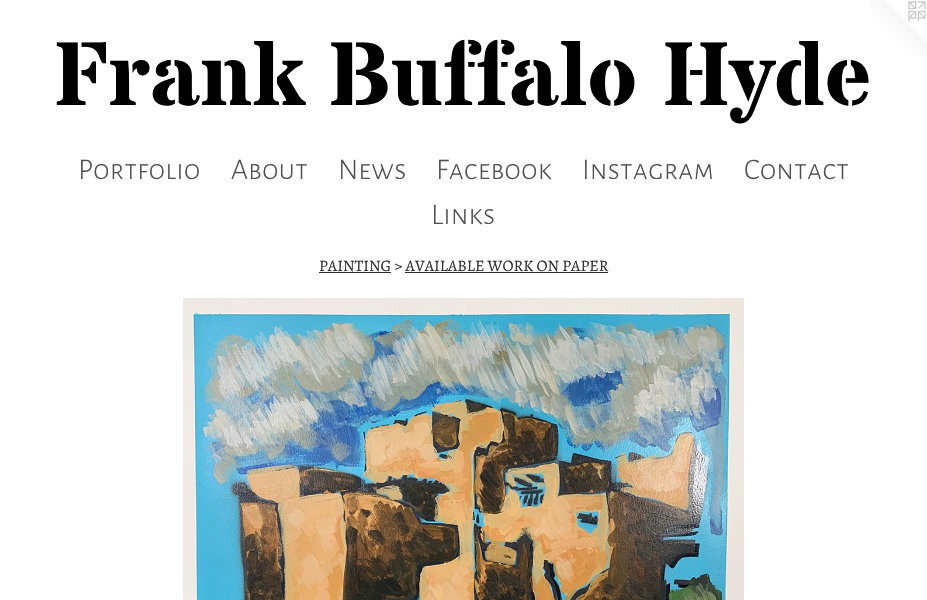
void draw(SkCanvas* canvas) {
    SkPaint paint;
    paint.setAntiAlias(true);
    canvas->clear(0xFFFFFFFF);
    canvas->drawImageRect(SkImages::DeferredFromEncodedData(SkData::MakeFromFileName("img1.png")), SkRect::MakeXYWH(871, 0, 56, 56), SkSamplingOptions());
    SkFont font1(fontMgr->matchFamilyStyle("Stardos Stencil", SkFontStyle::Bold()), 90);
    font1.setSubpixel(true);
    paint.setColor(0xFF000000);
    canvas->drawString("Frank Buffalo Hyde", 54, 105, font1, paint);
    SkFont font2(fontMgr->matchFamilyStyle("Alegreya Sans SC", SkFontStyle(300, SkFontStyle::kNormal_Width, SkFontStyle::kUpright_Slant)), 30);
    font2.setSubpixel(true);
    paint.setColor(0xFF4F4F4F);
    canvas->drawString("Portfolio", 78, 179, font2, paint);
    canvas->drawString("About", 231, 179, font2, paint);
    canvas->drawString("News", 338, 179, font2, paint);
    canvas->drawString("Facebook", 436, 179, font2, paint);
    canvas->drawString("Instagram", 582, 179, font2, paint);
    canvas->drawString("Contact", 744, 179, font2, paint);
    canvas->drawString("Links", 431, 224, font2, paint);
    SkFont font3(fontMgr->matchFamilyStyle("Alegreya SC", SkFontStyle::Normal()), 16);
    font3.setSubpixel(true);
    paint.setColor(0xFF2F2D2D);
    canvas->drawString("PAINTING > AVAILABLE WORK ON PAPER", 319, 271, font3, paint);
    canvas->drawRect(SkRect::MakeXYWH(319, 272, 72, 1), paint);
    canvas->drawRect(SkRect::MakeXYWH(405, 272, 203, 1), paint);
    canvas->drawImageRect(SkImages::DeferredFromEncodedData(SkData::MakeFromFileName("img2.png")), SkRect::MakeXYWH(183, 298, 561, 302), SkSamplingOptions());
}
